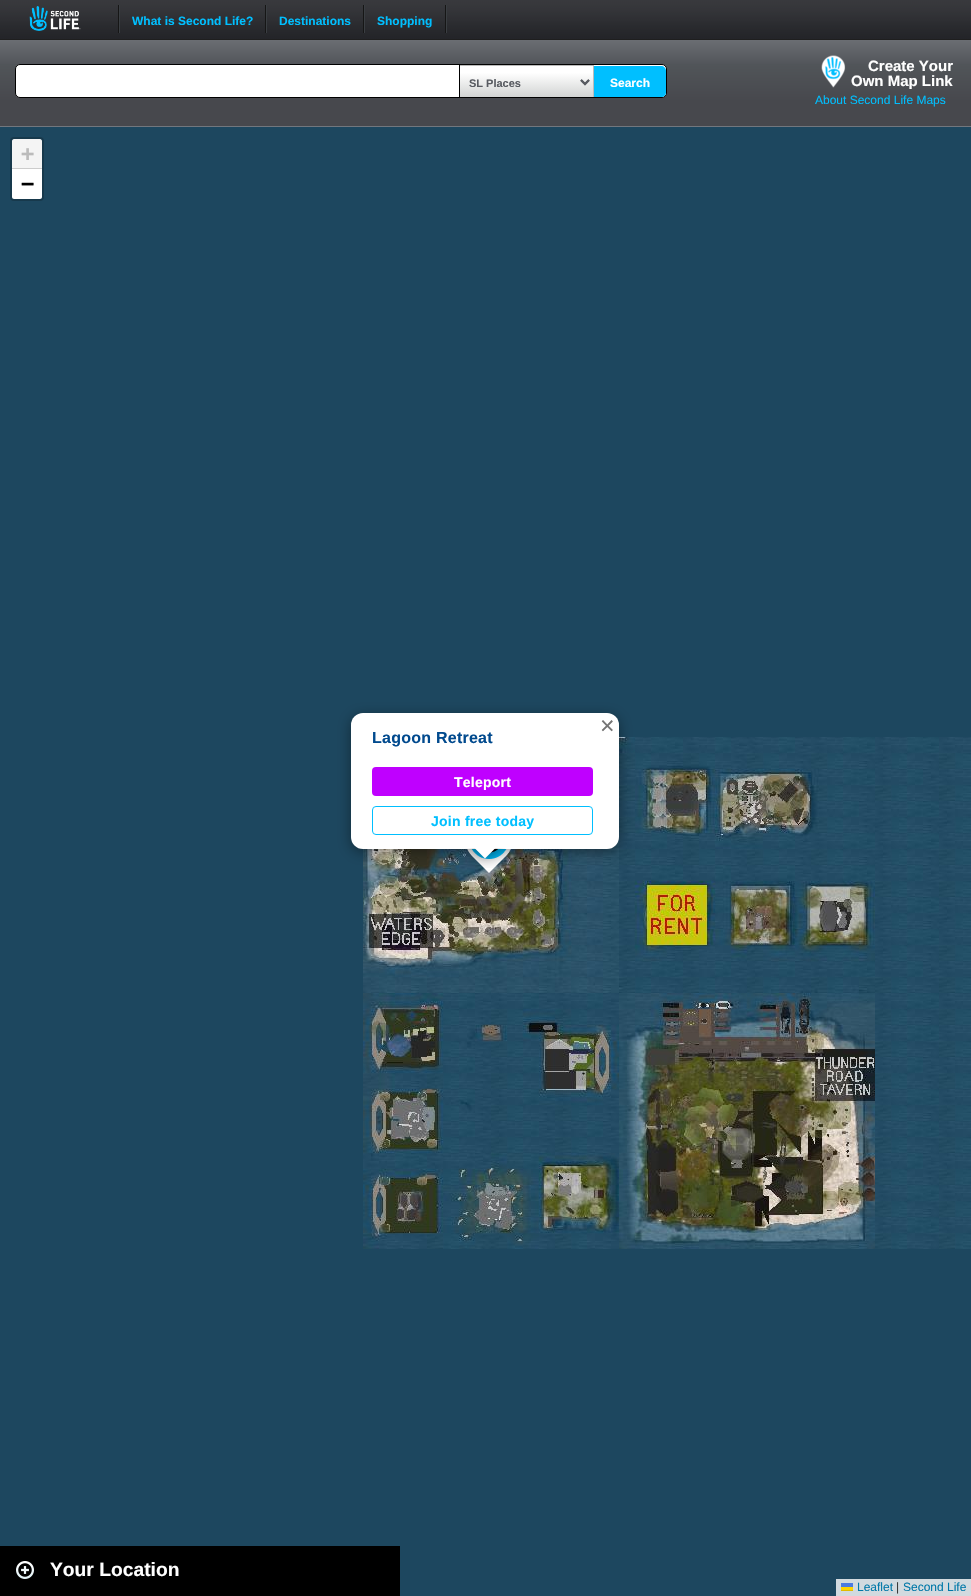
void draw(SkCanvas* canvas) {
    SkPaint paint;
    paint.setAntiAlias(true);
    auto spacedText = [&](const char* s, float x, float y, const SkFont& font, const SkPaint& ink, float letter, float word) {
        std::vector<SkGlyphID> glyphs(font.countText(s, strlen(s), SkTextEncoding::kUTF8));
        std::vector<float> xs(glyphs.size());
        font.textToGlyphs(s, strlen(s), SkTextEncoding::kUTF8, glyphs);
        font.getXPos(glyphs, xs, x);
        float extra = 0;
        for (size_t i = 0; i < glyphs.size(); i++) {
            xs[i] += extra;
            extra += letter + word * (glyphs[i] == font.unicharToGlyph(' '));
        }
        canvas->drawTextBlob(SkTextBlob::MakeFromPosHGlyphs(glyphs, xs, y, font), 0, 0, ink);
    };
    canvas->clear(0xFF1D475F);
    canvas->drawImageRect(SkImages::DeferredFromEncodedData(SkData::MakeFromFileName("img1.png")), SkRect::MakeXYWH(0, 0, 971, 40), SkSamplingOptions());
    canvas->drawImageRect(SkImages::DeferredFromEncodedData(SkData::MakeFromFileName("img2.png")), SkRect::MakeXYWH(29, 6, 52, 25), SkSamplingOptions());
    paint.setColor(0xFF3A3E42);
    canvas->drawRect(SkRect::MakeXYWH(119, 5, 1, 28), paint);
    paint.setColor(0xFF161616);
    canvas->drawRect(SkRect::MakeXYWH(118, 5, 1, 28), paint);
    SkFont font1(fontMgr->matchFamilyStyle("Liberation Sans", SkFontStyle::Bold()), 12);
    font1.setSubpixel(true);
    paint.setColor(0xFF00BFFF);
    canvas->drawString("What is Second Life?", 132, 25, font1, paint);
    paint.setColor(0xFF3A3E42);
    canvas->drawRect(SkRect::MakeXYWH(266, 5, 1, 28), paint);
    paint.setColor(0xFF161616);
    canvas->drawRect(SkRect::MakeXYWH(265, 5, 1, 28), paint);
    paint.setColor(0xFF00BFFF);
    canvas->drawString("Destinations", 279, 25, font1, paint);
    paint.setColor(0xFF3A3E42);
    canvas->drawRect(SkRect::MakeXYWH(364, 5, 1, 28), paint);
    paint.setColor(0xFF161616);
    canvas->drawRect(SkRect::MakeXYWH(363, 5, 1, 28), paint);
    paint.setColor(0xFF00BFFF);
    canvas->drawString("Shopping", 377, 25, font1, paint);
    paint.setColor(0xFF3A3E42);
    canvas->drawRect(SkRect::MakeXYWH(446, 5, 1, 28), paint);
    paint.setColor(0xFF161616);
    canvas->drawRect(SkRect::MakeXYWH(445, 5, 1, 28), paint);
    {
        const SkColor colors[] = {0xFF47484D, 0xFF515559, 0xFF6B6E73};
        const float stops[] = {0.29f, 0.71f, 1};
        const SkPoint ends[] = {{0, 126}, {0, 40}};
        paint.setShader(SkGradientShader::MakeLinear(ends, colors, stops, 3, SkTileMode::kClamp));
        paint.setAlpha(255);
    }
    canvas->drawRect(SkRect::MakeXYWH(0, 40, 971, 86), paint);
    paint.setShader(nullptr);
    paint.setColor(0xFF72777E);
    canvas->drawRect(SkRect::MakeXYWH(0, 126, 971, 1), paint);
    paint.setColor(0xFFFFFFFF);
    canvas->drawRoundRect(SkRect::MakeXYWH(15.5f, 64.5f, 651, 33), 4.5f, 4.5f, paint);
    paint.setStyle(SkPaint::kStroke_Style);
    paint.setStrokeWidth(1);
    paint.setColor(0xFF000000);
    canvas->drawRoundRect(SkRect::MakeXYWH(15.5f, 64.5f, 651, 33), 4.5f, 4.5f, paint);
    canvas->drawImageRect(SkImages::DeferredFromEncodedData(SkData::MakeFromFileName("img3.png")), SkRect::MakeXYWH(460, 66, 133, 31), SkSamplingOptions());
    paint.setStyle(SkPaint::kFill_Style);
    paint.setColor(0xFFBBBBBB);
    canvas->drawRect(SkRect::MakeXYWH(459, 65, 135, 1), paint);
    canvas->drawRect(SkRect::MakeXYWH(593, 65, 1, 32), paint);
    paint.setColor(0xFF000000);
    canvas->drawRect(SkRect::MakeXYWH(459, 65, 1, 32), paint);
    paint.setStyle(SkPaint::kStroke_Style);
    paint.setStrokeWidth(2);
    paint.setColor(0xFF595C62);
    canvas->drawPath(SkPathBuilder().moveTo(581, 80).lineTo(585, 84).lineTo(589, 80).detach(), paint);
    SkFont font2(fontMgr->matchFamilyStyle("Liberation Sans", SkFontStyle::Bold()), 11);
    font2.setSubpixel(true);
    paint.setStyle(SkPaint::kFill_Style);
    canvas->drawString("SL Places", 469, 87, font2, paint);
    canvas->save();
    canvas->clipPath(SkPathBuilder().moveTo(20, 65).lineTo(662, 65).cubicTo(664, 65, 666, 67, 666, 69).lineTo(666, 93).cubicTo(666, 95, 664, 97, 662, 97).lineTo(20, 97).cubicTo(18, 97, 16, 95, 16, 93).lineTo(16, 69).cubicTo(16, 67, 18, 65, 20, 65).close().detach(), true);
    paint.setColor(0xFF00BFFF);
    canvas->drawPath(SkPathBuilder().moveTo(594, 66).lineTo(661, 66).cubicTo(664, 66, 666, 68, 666, 71).lineTo(666, 95).cubicTo(666, 98, 664, 100, 661, 100).lineTo(594, 100).close().detach(), paint);
    canvas->restore();
    paint.setColor(0xFFFFFFFF);
    canvas->drawString("Search", 610, 87, font1, paint);
    canvas->drawImageRect(SkImages::DeferredFromEncodedData(SkData::MakeFromFileName("img4.png")), SkRect::MakeXYWH(821, 55, 25, 33), SkSamplingOptions());
    SkFont font3(fontMgr->matchFamilyStyle("Liberation Sans", SkFontStyle::Bold()), 15);
    font3.setSubpixel(true);
    canvas->drawString("Create Your", 868, 71, font3, paint);
    canvas->drawString("Own Map Link", 851, 86, font3, paint);
    SkFont font4(fontMgr->matchFamilyStyle("Liberation Sans", SkFontStyle::Normal()), 12);
    font4.setSubpixel(true);
    paint.setColor(0xFF00BFFF);
    canvas->drawString("About Second Life Maps", 815, 104, font4, paint);
    paint.setStyle(SkPaint::kStroke_Style);
    paint.setColor(0xFF17394C);
    canvas->drawRoundRect(SkRect::MakeXYWH(11, 138, 32, 62), 3, 3, paint);
    paint.setStyle(SkPaint::kFill_Style);
    paint.setColor(0xFFF4F4F4);
    canvas->drawPath(SkPathBuilder().moveTo(14, 139).lineTo(40, 139).cubicTo(41, 139, 42, 140, 42, 141).lineTo(42, 169).lineTo(12, 169).lineTo(12, 141).cubicTo(12, 140, 13, 139, 14, 139).close().detach(), paint);
    paint.setColor(0xFFCCCCCC);
    canvas->drawRect(SkRect::MakeXYWH(12, 168, 30, 1), paint);
    SkFont font5(fontMgr->matchFamilyStyle("DejaVu Sans Mono", SkFontStyle::Bold()), 22);
    font5.setSubpixel(true);
    paint.setColor(0xFFBBBBBB);
    canvas->drawString("+", 21, 161, font5, paint);
    paint.setColor(0xFFFFFFFF);
    canvas->drawPath(SkPathBuilder().moveTo(12, 169).lineTo(42, 169).lineTo(42, 197).cubicTo(42, 198, 41, 199, 40, 199).lineTo(14, 199).cubicTo(13, 199, 12, 198, 12, 197).close().detach(), paint);
    paint.setColor(0xFF000000);
    canvas->drawString("−", 21, 191, font5, paint);
    paint.setColor(0xFFD2DADF);
    canvas->drawRect(SkRect::MakeXYWH(836, 1579, 135, 17), paint);
    paint.setColor(0xFF0078A8);
    canvas->drawString("Leaflet", 857, 1591, font4, paint);
    paint.setColor(0xFF4C7BE1);
    canvas->drawRect(SkRect::MakeXYWH(841, 1583, 12, 4), paint);
    paint.setColor(0xFFFFD500);
    canvas->drawRect(SkRect::MakeXYWH(841, 1587, 12, 3), paint);
    paint.setColor(0xFFE0BC00);
    canvas->drawRect(SkRect::MakeXYWH(841, 1590, 12, 1), paint);
    paint.setColor(0xFF333333);
    canvas->drawString("|", 896, 1591, font4, paint);
    paint.setColor(0xFF0078A8);
    canvas->drawString("Second Life", 903, 1591, font4, paint);
    canvas->drawImageRect(SkImages::DeferredFromEncodedData(SkData::MakeFromFileName("img5.png")), SkRect::MakeXYWH(363, 837, 256, 156), SkSamplingOptions());
    canvas->drawImageRect(SkImages::DeferredFromEncodedData(SkData::MakeFromFileName("img6.png")), SkRect::MakeXYWH(619, 737, 256, 256), SkSamplingOptions());
    canvas->drawImageRect(SkImages::DeferredFromEncodedData(SkData::MakeFromFileName("img11.png")), SkRect::MakeXYWH(467, 849, 44, 24), SkSamplingOptions());
    paint.setColor(0x66000000);
    paint.setMaskFilter(SkMaskFilter::MakeBlur(kNormal_SkBlurStyle, 7));
    canvas->drawRoundRect(SkRect::MakeXYWH(351, 716, 268, 136), 12, 12, paint);
    paint.setMaskFilter(nullptr);
    paint.setColor(0xFFFFFFFF);
    canvas->drawRoundRect(SkRect::MakeXYWH(351, 713, 268, 136), 12, 12, paint);
    SkFont font6(fontMgr->matchFamilyStyle("Liberation Sans", SkFontStyle::Normal()), 25);
    font6.setSubpixel(true);
    paint.setColor(0xFF757575);
    canvas->drawString("×", 600, 734, font6, paint);
    SkFont font7(fontMgr->matchFamilyStyle("Liberation Sans", SkFontStyle::Bold()), 16);
    font7.setSubpixel(true);
    paint.setColor(0xFF014A8E);
    spacedText("Lagoon Retreat", 372, 743, font7, paint, 0.25f, 0);
    paint.setColor(0xFFBF00FF);
    canvas->drawRoundRect(SkRect::MakeXYWH(372, 767, 221, 29), 4, 4, paint);
    SkFont font8(fontMgr->matchFamilyStyle("Liberation Sans", SkFontStyle::Bold()), 14);
    font8.setSubpixel(true);
    paint.setColor(0xFFFFFFFF);
    spacedText("Teleport", 454, 787, font8, paint, 0.25f, 0);
    paint.setStyle(SkPaint::kStroke_Style);
    paint.setStrokeWidth(1);
    paint.setColor(0xFF00BFFF);
    canvas->drawRoundRect(SkRect::MakeXYWH(372.5f, 806.5f, 220, 28), 3.5f, 3.5f, paint);
    paint.setStyle(SkPaint::kFill_Style);
    spacedText("Join free today", 431, 826, font8, paint, 0.25f, 0);
    canvas->save();
    canvas->clipRect(SkRect::MakeXYWH(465, 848, 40, 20));
    paint.setColor(0x66000000);
    paint.setMaskFilter(SkMaskFilter::MakeBlur(kNormal_SkBlurStyle, 7));
    canvas->drawRect(SkRect::MakeXYWH(477, 841, 17, 17), paint);
    paint.setMaskFilter(nullptr);
    canvas->restore();
    canvas->save();
    canvas->clipRect(SkRect::MakeXYWH(465, 848, 40, 20));
    paint.setColor(0xFFFFFFFF);
    canvas->drawPath(SkPathBuilder().moveTo(485, 834.5f).lineTo(497, 846.5f).lineTo(485, 858.5f).lineTo(473, 846.5f).close().detach(), paint);
    canvas->restore();
    canvas->drawImageRect(SkImages::DeferredFromEncodedData(SkData::MakeFromFileName("img7.png")), SkRect::MakeXYWH(875, 737, 96, 256), SkSamplingOptions());
    canvas->drawImageRect(SkImages::DeferredFromEncodedData(SkData::MakeFromFileName("img8.png")), SkRect::MakeXYWH(363, 993, 256, 256), SkSamplingOptions());
    canvas->drawImageRect(SkImages::DeferredFromEncodedData(SkData::MakeFromFileName("img9.png")), SkRect::MakeXYWH(619, 993, 256, 256), SkSamplingOptions());
    canvas->drawImageRect(SkImages::DeferredFromEncodedData(SkData::MakeFromFileName("img10.png")), SkRect::MakeXYWH(875, 993, 96, 256), SkSamplingOptions());
    paint.setColor(0xFF000000);
    canvas->drawRect(SkRect::MakeXYWH(0, 1546, 400, 50), paint);
    canvas->drawImageRect(SkImages::DeferredFromEncodedData(SkData::MakeFromFileName("img12.png")), SkRect::MakeXYWH(16, 1561, 18, 18), SkSamplingOptions());
    SkFont font9(fontMgr->matchFamilyStyle("Liberation Sans", SkFontStyle::Bold()), 19.25f);
    font9.setSubpixel(true);
    paint.setColor(0xFFFFFFFF);
    canvas->drawString("Your Location", 50, 1576, font9, paint);
}
